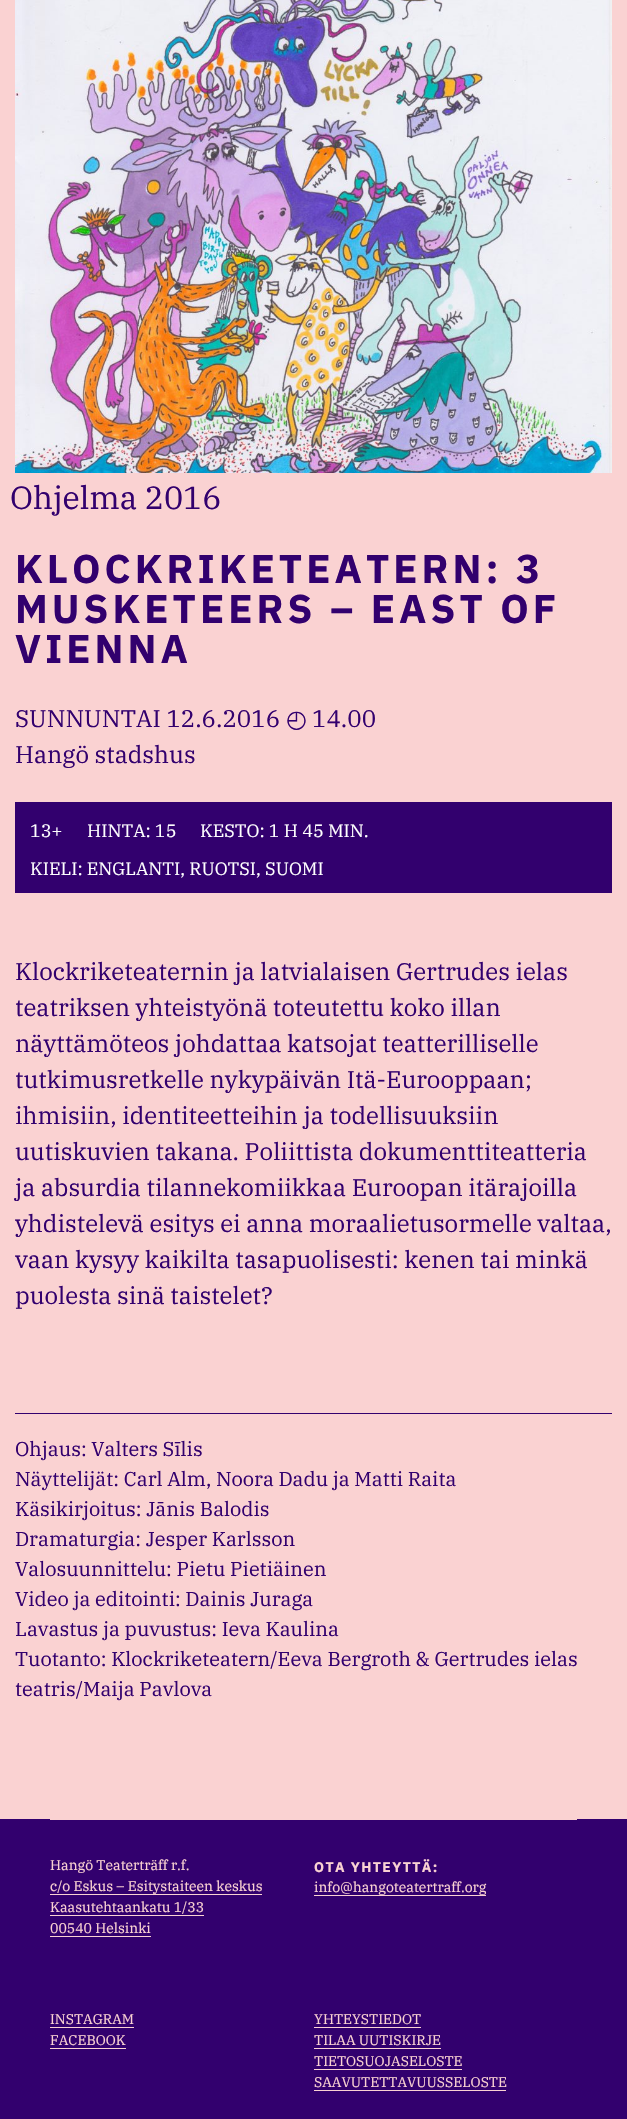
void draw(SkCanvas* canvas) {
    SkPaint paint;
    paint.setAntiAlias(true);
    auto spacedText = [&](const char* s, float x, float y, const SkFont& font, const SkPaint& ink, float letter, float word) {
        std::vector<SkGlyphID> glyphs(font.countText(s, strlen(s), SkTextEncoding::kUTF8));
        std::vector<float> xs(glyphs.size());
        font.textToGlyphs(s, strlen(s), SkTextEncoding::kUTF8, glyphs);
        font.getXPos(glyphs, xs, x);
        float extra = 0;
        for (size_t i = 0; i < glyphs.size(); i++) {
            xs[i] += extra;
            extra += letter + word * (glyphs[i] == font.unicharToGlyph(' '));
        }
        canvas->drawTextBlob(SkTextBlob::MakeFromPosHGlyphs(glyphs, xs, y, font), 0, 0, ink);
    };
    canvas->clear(0xFFFAD2D2);
    canvas->drawImageRect(SkImages::DeferredFromEncodedData(SkData::MakeFromFileName("img1.png")), SkRect::MakeXYWH(15, 0, 597, 473), SkSamplingOptions());
    SkFont font1(fontMgr->matchFamilyStyle("IBM Plex Serif", SkFontStyle::Normal()), 32);
    font1.setSubpixel(true);
    paint.setColor(0xFF32006E);
    canvas->drawString("Ohjelma 2016", 10, 509, font1, paint);
    SkFont font2(fontMgr->matchFamilyStyle("IBM Plex Sans", SkFontStyle::Bold()), 40);
    font2.setSubpixel(true);
    spacedText("KLOCKRIKETEATERN: 3", 15, 583, font2, paint, 4, 0);
    spacedText("MUSKETEERS – EAST OF", 15, 623, font2, paint, 4, 0);
    spacedText("VIENNA", 15, 663, font2, paint, 4, 0);
    SkFont font3(fontMgr->matchFamilyStyle("IBM Plex Serif", SkFontStyle::Normal()), 24);
    font3.setSubpixel(true);
    canvas->drawString("SUNNUNTAI 12.6.2016", 15, 727, font3, paint);
    SkFont font4(fontMgr->matchFamilyStyle("DejaVu Sans", SkFontStyle::Normal()), 24);
    font4.setSubpixel(true);
    canvas->drawString("◴", 286, 727, font4, paint);
    canvas->drawString("14.00", 312, 727, font3, paint);
    canvas->drawString("Hangö stadshus", 15, 763, font3, paint);
    canvas->drawRect(SkRect::MakeXYWH(15, 802, 597, 91), paint);
    SkFont font5(fontMgr->matchFamilyStyle("IBM Plex Serif", SkFontStyle::Normal()), 18);
    font5.setSubpixel(true);
    paint.setColor(0xFFFFFFFF);
    canvas->drawString("13+", 30, 837, font5, paint);
    canvas->drawString("HINTA: 15", 87, 837, font5, paint);
    canvas->drawString("KESTO: 1 H 45 MIN.", 200, 837, font5, paint);
    canvas->drawString("KIELI: ENGLANTI, RUOTSI, SUOMI", 30, 875, font5, paint);
    paint.setColor(0xFF32006E);
    canvas->drawString("Klockriketeaternin ja latvialaisen Gertrudes ielas", 15, 980, font3, paint);
    canvas->drawString("teatriksen yhteistyönä toteutettu koko illan", 15, 1016, font3, paint);
    canvas->drawString("näyttämöteos johdattaa katsojat teatterilliselle", 15, 1052, font3, paint);
    canvas->drawString("tutkimusretkelle nykypäivän Itä-Eurooppaan;", 15, 1088, font3, paint);
    canvas->drawString("ihmisiin, identiteetteihin ja todellisuuksiin", 15, 1124, font3, paint);
    canvas->drawString("uutiskuvien takana. Poliittista dokumenttiteatteria", 15, 1160, font3, paint);
    canvas->drawString("ja absurdia tilannekomiikkaa Euroopan itärajoilla", 15, 1196, font3, paint);
    canvas->drawString("yhdistelevä esitys ei anna moraalietusormelle valtaa,", 15, 1232, font3, paint);
    canvas->drawString("vaan kysyy kaikilta tasapuolisesti: kenen tai minkä", 15, 1268, font3, paint);
    canvas->drawString("puolesta sinä taistelet?", 15, 1304, font3, paint);
    canvas->drawRect(SkRect::MakeXYWH(15, 1413, 597, 1), paint);
    SkFont font6(fontMgr->matchFamilyStyle("IBM Plex Serif", SkFontStyle::Normal()), 20);
    font6.setSubpixel(true);
    canvas->drawString("Ohjaus: Valters Sīlis", 15, 1456, font6, paint);
    canvas->drawString("Näyttelijät: Carl Alm, Noora Dadu ja Matti Raita", 15, 1486, font6, paint);
    canvas->drawString("Käsikirjoitus: Jānis Balodis", 15, 1516, font6, paint);
    canvas->drawString("Dramaturgia: Jesper Karlsson", 15, 1546, font6, paint);
    canvas->drawString("Valosuunnittelu: Pietu Pietiäinen", 15, 1576, font6, paint);
    canvas->drawString("Video ja editointi: Dainis Juraga", 15, 1606, font6, paint);
    canvas->drawString("Lavastus ja puvustus: Ieva Kaulina", 15, 1636, font6, paint);
    canvas->drawString("Tuotanto: Klockriketeatern/Eeva Bergroth & Gertrudes ielas", 15, 1666, font6, paint);
    canvas->drawString("teatris/Maija Pavlova", 15, 1696, font6, paint);
    canvas->drawRect(SkRect::MakeXYWH(0, 1819, 627, 300), paint);
    paint.setColor(0xFFFAD2D2);
    canvas->drawRect(SkRect::MakeXYWH(50, 1819, 527, 1), paint);
    SkFont font7(fontMgr->matchFamilyStyle("IBM Plex Serif", SkFontStyle::Normal()), 14);
    font7.setSubpixel(true);
    canvas->drawString("Hangö Teaterträff r.f.", 50, 1870, font7, paint);
    canvas->drawString("c/o Eskus – Esitystaiteen keskus", 50, 1891, font7, paint);
    canvas->drawRect(SkRect::MakeXYWH(50, 1894, 212, 1), paint);
    canvas->drawString("Kaasutehtaankatu 1/33", 50, 1912, font7, paint);
    canvas->drawRect(SkRect::MakeXYWH(50, 1915, 154, 1), paint);
    canvas->drawString("00540 Helsinki", 50, 1933, font7, paint);
    canvas->drawRect(SkRect::MakeXYWH(50, 1936, 101, 1), paint);
    SkFont font8(fontMgr->matchFamilyStyle("IBM Plex Sans", SkFontStyle::Bold()), 14);
    font8.setSubpixel(true);
    spacedText("OTA YHTEYTTÄ:", 314, 1872, font8, paint, 1.4f, 0);
    canvas->drawString("info@hangoteatertraff.org", 314, 1892, font7, paint);
    canvas->drawRect(SkRect::MakeXYWH(314, 1895, 172, 1), paint);
    canvas->drawString("INSTAGRAM", 50, 2024, font7, paint);
    canvas->drawRect(SkRect::MakeXYWH(50, 2027, 84, 1), paint);
    canvas->drawString("FACEBOOK", 50, 2045, font7, paint);
    canvas->drawRect(SkRect::MakeXYWH(50, 2048, 76, 1), paint);
    canvas->drawString("YHTEYSTIEDOT", 314, 2024, font7, paint);
    canvas->drawRect(SkRect::MakeXYWH(314, 2027, 107, 1), paint);
    canvas->drawString("TILAA UUTISKIRJE", 314, 2045, font7, paint);
    canvas->drawRect(SkRect::MakeXYWH(314, 2048, 127, 1), paint);
    canvas->drawString("TIETOSUOJASELOSTE", 314, 2066, font7, paint);
    canvas->drawRect(SkRect::MakeXYWH(314, 2069, 148, 1), paint);
    canvas->drawString("SAAVUTETTAVUUSSELOSTE", 314, 2087, font7, paint);
    canvas->drawRect(SkRect::MakeXYWH(314, 2090, 192, 1), paint);
}
